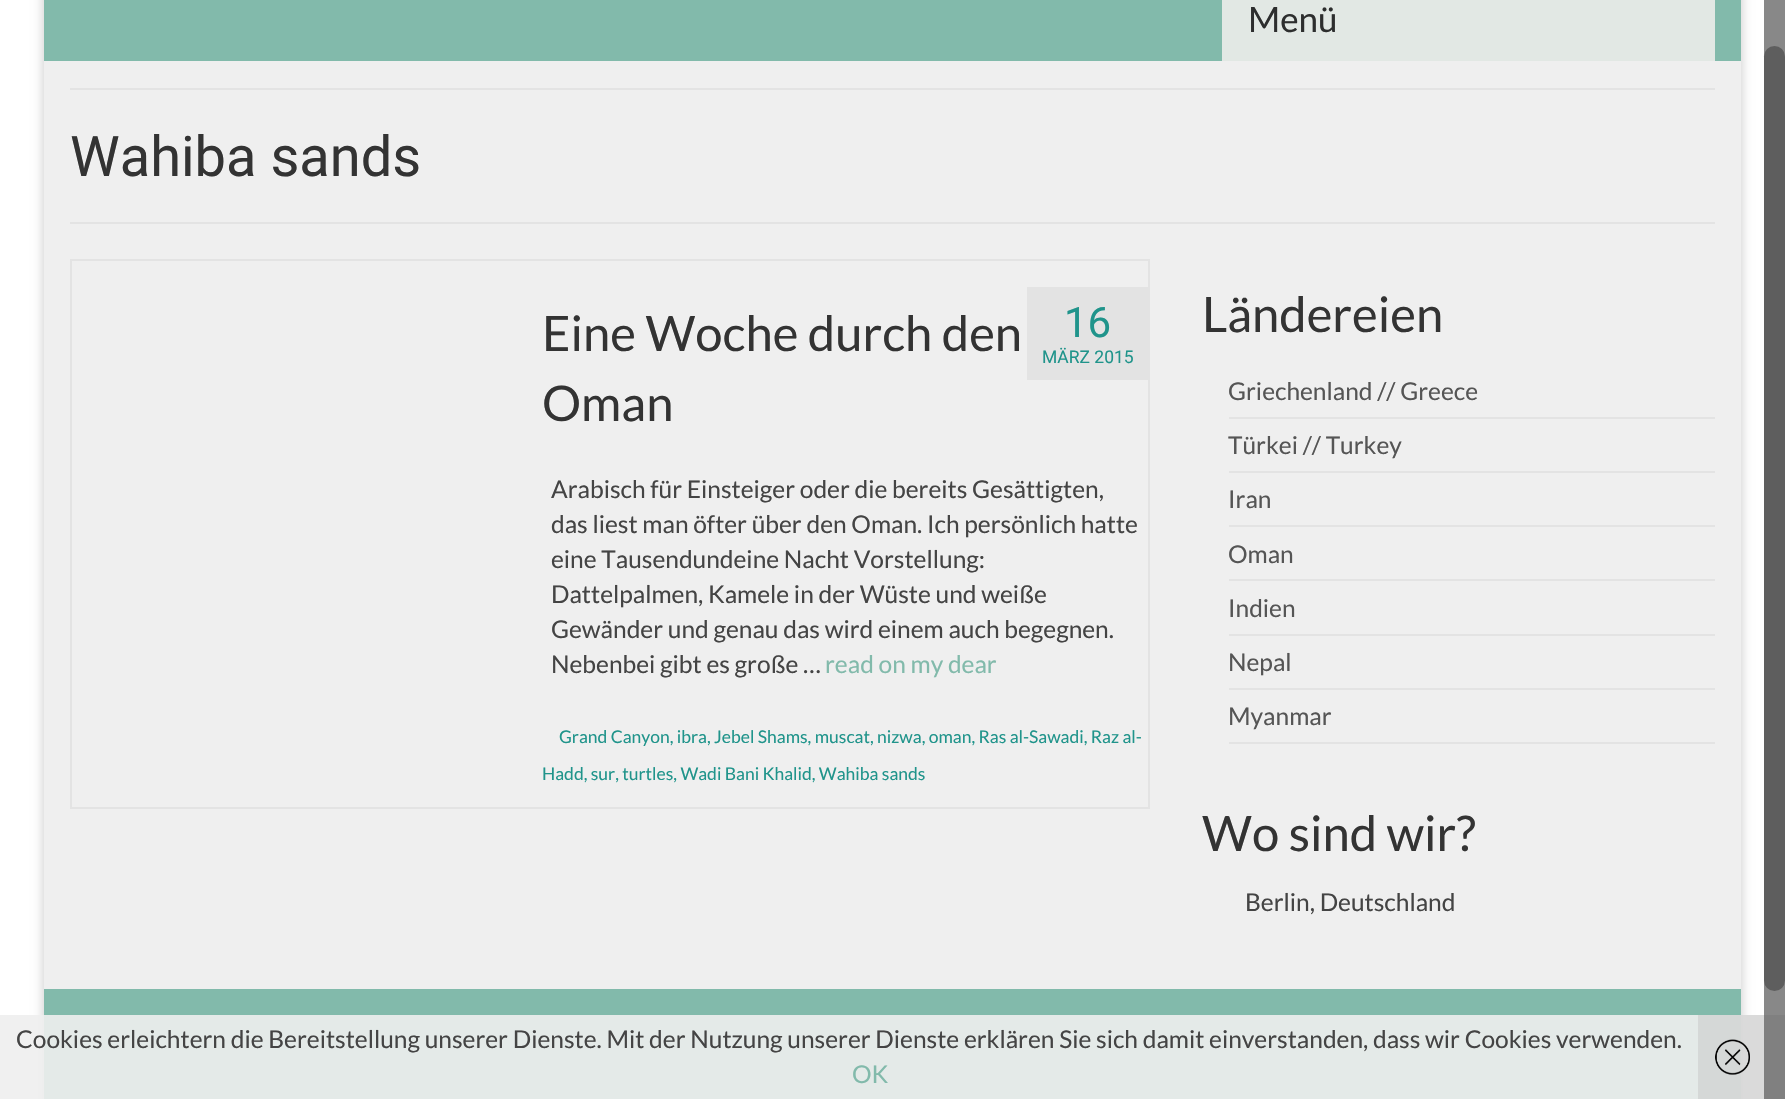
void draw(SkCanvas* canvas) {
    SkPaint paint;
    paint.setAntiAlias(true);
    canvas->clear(0xFFFFFFFF);
    paint.setColor(0x29000000);
    paint.setMaskFilter(SkMaskFilter::MakeBlur(kNormal_SkBlurStyle, 4.5f));
    canvas->drawRect(SkRect::MakeXYWH(42, -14, 1701, 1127), paint);
    paint.setMaskFilter(nullptr);
    paint.setColor(0xFF82BAAB);
    canvas->drawRect(SkRect::MakeXYWH(44, 0, 1697, 61), paint);
    paint.setColor(0xFFE2E8E4);
    canvas->drawRect(SkRect::MakeXYWH(1222, 0, 493, 61), paint);
    SkFont font1(fontMgr->matchFamilyStyle("Lato", SkFontStyle::Normal()), 35);
    font1.setSubpixel(true);
    paint.setColor(0xFF2D2E2E);
    canvas->drawString("Menü", 1248, 32, font1, paint);
    paint.setColor(0xFFEFEFEF);
    canvas->drawRect(SkRect::MakeXYWH(44, 61, 1697, 928), paint);
    paint.setColor(0xFFE3E3E3);
    canvas->drawRect(SkRect::MakeXYWH(70, 88, 1645, 2), paint);
    canvas->drawRect(SkRect::MakeXYWH(70, 222, 1645, 2), paint);
    SkFont font2(fontMgr->matchFamilyStyle("Roboto", SkFontStyle::Normal()), 56);
    font2.setSubpixel(true);
    paint.setColor(0xFF333333);
    canvas->drawString("Wahiba sands", 70, 176, font2, paint);
    paint.setStyle(SkPaint::kStroke_Style);
    paint.setStrokeWidth(2);
    paint.setColor(0xFFE3E3E3);
    canvas->drawRect(SkRect::MakeXYWH(71, 260, 1078, 548), paint);
    SkFont font3(fontMgr->matchFamilyStyle("Lato", SkFontStyle::Normal()), 49);
    font3.setSubpixel(true);
    paint.setStyle(SkPaint::kFill_Style);
    paint.setColor(0xFF333333);
    canvas->drawString("Eine Woche durch den", 542, 351, font3, paint);
    canvas->drawString("Oman", 542, 421, font3, paint);
    paint.setColor(0xFFE3E3E3);
    canvas->drawRect(SkRect::MakeXYWH(1027, 287, 121, 93), paint);
    SkFont font4(fontMgr->matchFamilyStyle("Roboto", SkFontStyle::Normal()), 42);
    font4.setSubpixel(true);
    paint.setColor(0xFF20948B);
    canvas->drawString("16", 1064, 337, font4, paint);
    SkFont font5(fontMgr->matchFamilyStyle("Roboto", SkFontStyle::Normal()), 17.5f);
    font5.setSubpixel(true);
    canvas->drawString("MÄRZ 2015", 1042, 363, font5, paint);
    SkFont font6(fontMgr->matchFamilyStyle("Lato", SkFontStyle::Normal()), 24.5f);
    font6.setSubpixel(true);
    paint.setColor(0xFF444444);
    canvas->drawString("Arabisch für Einsteiger oder die bereits Gesättigten,", 551, 498, font6, paint);
    canvas->drawString("das liest man öfter über den Oman. Ich persönlich hatte", 551, 533, font6, paint);
    canvas->drawString("eine Tausendundeine Nacht Vorstellung:", 551, 568, font6, paint);
    canvas->drawString("Dattelpalmen, Kamele in der Wüste und weiße", 551, 603, font6, paint);
    canvas->drawString("Gewänder und genau das wird einem auch begegnen.", 551, 638, font6, paint);
    canvas->drawString("Nebenbei gibt es große …", 551, 673, font6, paint);
    paint.setColor(0xFF82BAAB);
    canvas->drawString("read on my dear", 825, 673, font6, paint);
    SkFont font7(fontMgr->matchFamilyStyle("Lato", SkFontStyle::Normal()), 17.5f);
    font7.setSubpixel(true);
    paint.setColor(0xFF20948B);
    canvas->drawString("Grand Canyon, ibra, Jebel Shams, muscat, nizwa, oman, Ras al-Sawadi, Raz al-", 559, 743, font7, paint);
    canvas->drawString("Hadd, sur, turtles, Wadi Bani Khalid, Wahiba sands", 542, 780, font7, paint);
    paint.setColor(0xFF333333);
    canvas->drawString("Ländereien", 1202, 332, font3, paint);
    paint.setColor(0xFFE3E3E3);
    canvas->drawRect(SkRect::MakeXYWH(1229, 417, 486, 2), paint);
    paint.setColor(0xFF555555);
    canvas->drawString("Griechenland // Greece", 1228, 400, font6, paint);
    paint.setColor(0xFFE3E3E3);
    canvas->drawRect(SkRect::MakeXYWH(1229, 471, 486, 2), paint);
    paint.setColor(0xFF555555);
    canvas->drawString("Türkei // Turkey", 1228, 454, font6, paint);
    paint.setColor(0xFFE3E3E3);
    canvas->drawRect(SkRect::MakeXYWH(1229, 525, 486, 2), paint);
    paint.setColor(0xFF555555);
    canvas->drawString("Iran", 1228, 508, font6, paint);
    paint.setColor(0xFFE3E3E3);
    canvas->drawRect(SkRect::MakeXYWH(1229, 579, 486, 2), paint);
    paint.setColor(0xFF555555);
    canvas->drawString("Oman", 1228, 563, font6, paint);
    paint.setColor(0xFFE3E3E3);
    canvas->drawRect(SkRect::MakeXYWH(1229, 634, 486, 2), paint);
    paint.setColor(0xFF555555);
    canvas->drawString("Indien", 1228, 617, font6, paint);
    paint.setColor(0xFFE3E3E3);
    canvas->drawRect(SkRect::MakeXYWH(1229, 688, 486, 2), paint);
    paint.setColor(0xFF555555);
    canvas->drawString("Nepal", 1228, 671, font6, paint);
    paint.setColor(0xFFE3E3E3);
    canvas->drawRect(SkRect::MakeXYWH(1229, 742, 486, 2), paint);
    paint.setColor(0xFF555555);
    canvas->drawString("Myanmar", 1228, 725, font6, paint);
    paint.setColor(0xFF333333);
    canvas->drawString("Wo sind wir?", 1202, 851, font3, paint);
    paint.setColor(0xFF444444);
    canvas->drawString("Berlin, Deutschland", 1245, 911, font6, paint);
    paint.setColor(0xFF82BAAB);
    canvas->drawRect(SkRect::MakeXYWH(44, 989, 1697, 110), paint);
    paint.setColor(0xE6EEEEEE);
    canvas->drawRect(SkRect::MakeXYWH(0, 1015, 1785, 84), paint);
    paint.setColor(0x99CCCCCC);
    canvas->drawRect(SkRect::MakeXYWH(1698, 1015, 87, 84), paint);
    paint.setColor(0xC7666666);
    canvas->drawRect(SkRect::MakeXYWH(1764, 0, 21, 1099), paint);
    paint.setColor(0xFF5E5E5E);
    canvas->drawRoundRect(SkRect::MakeXYWH(1764, 46, 21, 945), 10.5f, 10.5f, paint);
    paint.setColor(0xFF444444);
    canvas->drawString("Cookies erleichtern die Bereitstellung unserer Dienste. Mit der Nutzung unserer Dienste erklären Sie sich damit einverstanden, dass wir Cookies verwenden.", 16, 1048, font6, paint);
    paint.setColor(0xFF82BAAB);
    canvas->drawString("OK", 852, 1083, font6, paint);
    canvas->drawImageRect(SkImages::DeferredFromEncodedData(SkData::MakeFromFileName("img1.png")), SkRect::MakeXYWH(1715, 1039, 35, 36), SkSamplingOptions());
}
